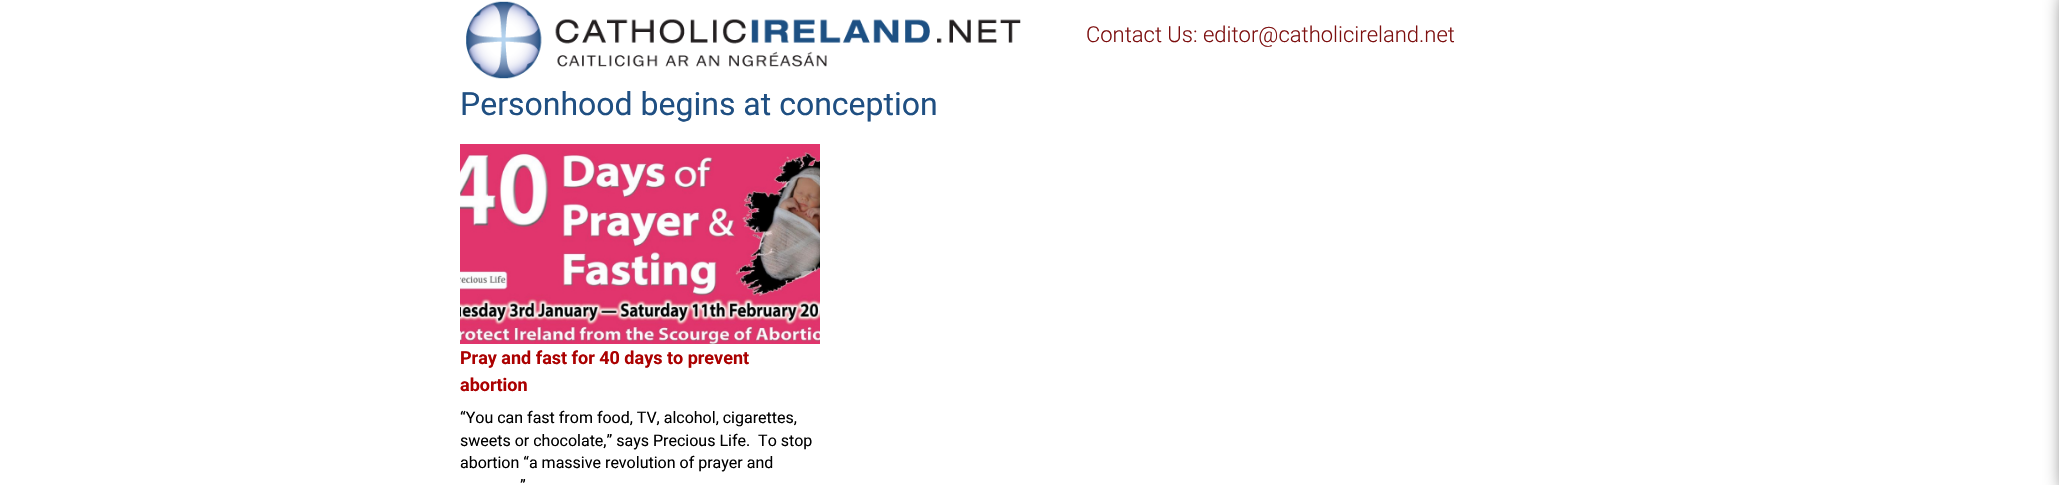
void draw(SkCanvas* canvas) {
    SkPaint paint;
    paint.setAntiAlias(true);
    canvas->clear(0xFFFFFFFF);
    canvas->drawImageRect(SkImages::DeferredFromEncodedData(SkData::MakeFromFileName("img1.png")), SkRect::MakeXYWH(466, 1, 555, 78), SkSamplingOptions());
    SkFont font1(fontMgr->matchFamilyStyle("Roboto", SkFontStyle(300, SkFontStyle::kNormal_Width, SkFontStyle::kUpright_Slant)), 22);
    font1.setSubpixel(true);
    paint.setColor(0xFF7D0F0F);
    canvas->drawString("Contact Us: editor@catholicireland.net", 1086, 42, font1, paint);
    SkFont font2(fontMgr->matchFamilyStyle("Roboto", SkFontStyle::Normal()), 32);
    font2.setSubpixel(true);
    paint.setColor(0xFF1F4F82);
    canvas->drawString("Personhood begins at conception", 460, 115, font2, paint);
    canvas->drawImageRect(SkImages::DeferredFromEncodedData(SkData::MakeFromFileName("img2.png")), SkRect::MakeXYWH(460, 144, 360, 200), SkSamplingOptions());
    SkFont font3(fontMgr->matchFamilyStyle("Roboto", SkFontStyle::Bold()), 18);
    font3.setSubpixel(true);
    paint.setColor(0xFFAB0000);
    canvas->drawString("Pray and fast for 40 days to prevent", 460, 364, font3, paint);
    canvas->drawString("abortion", 460, 391, font3, paint);
    SkFont font4(fontMgr->matchFamilyStyle("Roboto", SkFontStyle::Normal()), 16);
    font4.setSubpixel(true);
    paint.setColor(0xFF000000);
    canvas->drawString("“You can fast from food, TV, alcohol, cigarettes,", 460, 423, font4, paint);
    canvas->drawString("sweets or chocolate,” says Precious Life.  To stop", 460, 446, font4, paint);
    canvas->drawString("abortion “a massive revolution of prayer and", 460, 468, font4, paint);
    canvas->drawString("”", 520, 491, font4, paint);
    paint.setMaskFilter(SkMaskFilter::MakeBlur(kNormal_SkBlurStyle, 10.5f));
    canvas->drawRect(SkRect::MakeXYWH(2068, -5, 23, 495), paint);
    paint.setMaskFilter(nullptr);
}
